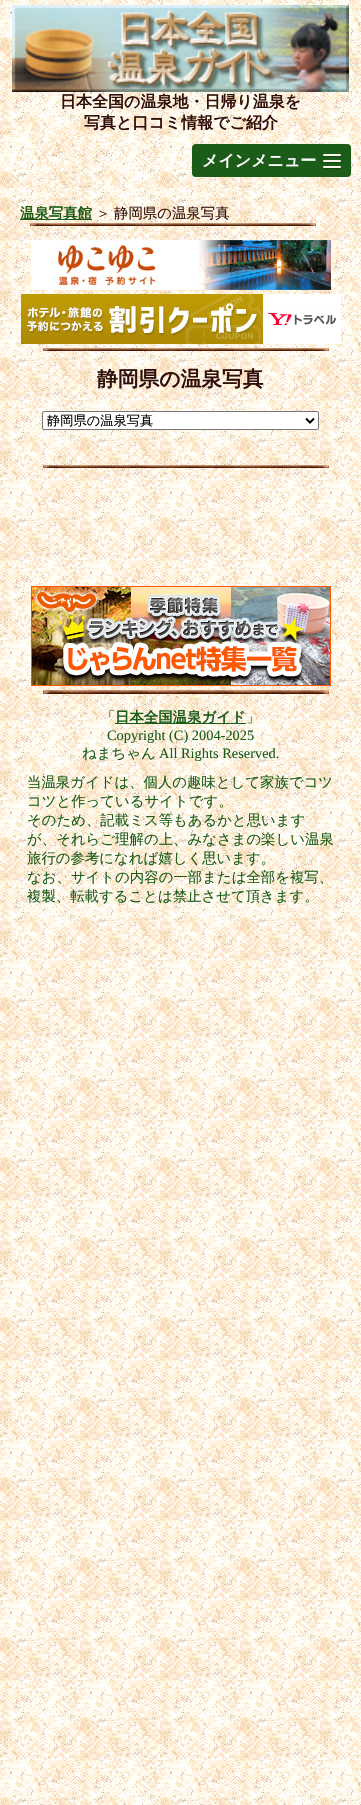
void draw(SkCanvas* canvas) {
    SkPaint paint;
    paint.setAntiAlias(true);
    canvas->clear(0xFFFFFFFF);
    canvas->drawImageRect(SkImages::DeferredFromEncodedData(SkData::MakeFromFileName("img1.png")), SkRect::MakeXYWH(0, 0, 361, 1805), SkSamplingOptions());
    canvas->drawImageRect(SkImages::DeferredFromEncodedData(SkData::MakeFromFileName("img2.png")), SkRect::MakeXYWH(12, 5, 337, 87), SkSamplingOptions());
    SkFont font1(fontMgr->matchFamilyStyle("WenQuanYi Zen Hei", SkFontStyle::Bold()), 16);
    font1.setSubpixel(true);
    paint.setColor(0xFF300F08);
    canvas->drawString("日本全国の温泉地・日帰り温泉を", 60, 107, font1, paint);
    canvas->drawString("写真と口コミ情報でご紹介", 84, 128, font1, paint);
    canvas->drawImageRect(SkImages::DeferredFromEncodedData(SkData::MakeFromFileName("img3.png")), SkRect::MakeXYWH(0, 134, 361, 54), SkSamplingOptions());
    paint.setColor(0xFF1C5C19);
    canvas->drawRoundRect(SkRect::MakeXYWH(192, 144, 159, 33), 4, 4, paint);
    paint.setColor(0xFFFFFFFF);
    canvas->drawString("メインメニュー", 202, 166, font1, paint);
    paint.setColor(0xFF154513);
    canvas->drawPath(SkPathBuilder().moveTo(323, 155.5f).cubicTo(322, 157.5f, 326.5f, 157, 326.5f, 157).lineTo(337.5f, 157).cubicTo(337.5f, 157, 342, 157.5f, 341, 155.5f).cubicTo(340, 156.5f, 333.5f, 156, 332, 156).cubicTo(330.5f, 156, 324, 156.5f, 323, 155.5f).close().detach(), paint);
    paint.setColor(0xFFFDF5E7);
    canvas->drawRoundRect(SkRect::MakeXYWH(323, 154, 18, 2), 1, 1, paint);
    paint.setColor(0xFF154513);
    canvas->drawPath(SkPathBuilder().moveTo(323, 161.5f).cubicTo(322, 163.5f, 326.5f, 163, 326.5f, 163).lineTo(337.5f, 163).cubicTo(337.5f, 163, 342, 163.5f, 341, 161.5f).cubicTo(340, 162.5f, 333.5f, 162, 332, 162).cubicTo(330.5f, 162, 324, 162.5f, 323, 161.5f).close().detach(), paint);
    paint.setColor(0xFFFDF5E7);
    canvas->drawRoundRect(SkRect::MakeXYWH(323, 160, 18, 2), 1, 1, paint);
    paint.setColor(0xFF154513);
    canvas->drawPath(SkPathBuilder().moveTo(323, 167.5f).cubicTo(322, 169.5f, 326.5f, 169, 326.5f, 169).lineTo(337.5f, 169).cubicTo(337.5f, 169, 342, 169.5f, 341, 167.5f).cubicTo(340, 168.5f, 333.5f, 168, 332, 168).cubicTo(330.5f, 168, 324, 168.5f, 323, 167.5f).close().detach(), paint);
    paint.setColor(0xFFFDF5E7);
    canvas->drawRoundRect(SkRect::MakeXYWH(323, 166, 18, 2), 1, 1, paint);
    paint.setColor(0xFF1C5C19);
    canvas->drawRect(SkRect::MakeXYWH(20, 219, 72, 1), paint);
    SkFont font2(fontMgr->matchFamilyStyle("WenQuanYi Zen Hei", SkFontStyle::Bold()), 14.4f);
    font2.setSubpixel(true);
    canvas->drawString("温泉写真館", 20, 218, font2, paint);
    SkFont font3(fontMgr->matchFamilyStyle("WenQuanYi Zen Hei", SkFontStyle(500, SkFontStyle::kNormal_Width, SkFontStyle::kUpright_Slant)), 14.4f);
    font3.setSubpixel(true);
    paint.setColor(0xFF300F08);
    canvas->drawString("＞", 96, 218, font3, paint);
    canvas->drawString("静岡県の温泉写真", 114, 218, font3, paint);
    canvas->drawImageRect(SkImages::DeferredFromEncodedData(SkData::MakeFromFileName("img4.png")), SkRect::MakeXYWH(30, 223, 286, 3), SkSamplingOptions());
    canvas->drawImageRect(SkImages::DeferredFromEncodedData(SkData::MakeFromFileName("img5.png")), SkRect::MakeXYWH(31, 240, 300, 50), SkSamplingOptions());
    canvas->drawImageRect(SkImages::DeferredFromEncodedData(SkData::MakeFromFileName("img6.png")), SkRect::MakeXYWH(21, 294, 320, 50), SkSamplingOptions());
    canvas->drawImageRect(SkImages::DeferredFromEncodedData(SkData::MakeFromFileName("img4.png")), SkRect::MakeXYWH(43, 348, 286, 3), SkSamplingOptions());
    SkFont font4(fontMgr->matchFamilyStyle("WenQuanYi Zen Hei", SkFontStyle::Bold()), 20.75f);
    font4.setSubpixel(true);
    canvas->drawString("静岡県の温泉写真", 97, 386, font4, paint);
    paint.setColor(0xFFFFFFFF);
    canvas->drawRoundRect(SkRect::MakeXYWH(42.5f, 411.5f, 276, 18), 1.5f, 1.5f, paint);
    paint.setStyle(SkPaint::kStroke_Style);
    paint.setStrokeWidth(1);
    paint.setColor(0xFF767676);
    canvas->drawRoundRect(SkRect::MakeXYWH(42.5f, 411.5f, 276, 18), 1.5f, 1.5f, paint);
    paint.setStrokeWidth(2);
    paint.setColor(0xFF000000);
    canvas->drawPath(SkPathBuilder().moveTo(306, 418.5f).lineTo(310, 422.5f).lineTo(314, 418.5f).detach(), paint);
    SkFont font5(fontMgr->matchFamilyStyle("WenQuanYi Zen Hei", SkFontStyle(500, SkFontStyle::kNormal_Width, SkFontStyle::kUpright_Slant)), 13.25f);
    font5.setSubpixel(true);
    paint.setStyle(SkPaint::kFill_Style);
    canvas->drawString("静岡県の温泉写真", 47, 425, font5, paint);
    canvas->drawImageRect(SkImages::DeferredFromEncodedData(SkData::MakeFromFileName("img4.png")), SkRect::MakeXYWH(43, 465, 286, 3), SkSamplingOptions());
    canvas->drawImageRect(SkImages::DeferredFromEncodedData(SkData::MakeFromFileName("img7.png")), SkRect::MakeXYWH(31, 586, 300, 100), SkSamplingOptions());
    canvas->drawImageRect(SkImages::DeferredFromEncodedData(SkData::MakeFromFileName("img8.png")), SkRect::MakeXYWH(43, 690, 286, 4), SkSamplingOptions());
    paint.setColor(0xFF1C5C19);
    canvas->drawString("「", 101, 722, font3, paint);
    canvas->drawRect(SkRect::MakeXYWH(115, 723, 131, 1), paint);
    canvas->drawString("日本全国温泉ガイド", 115, 722, font2, paint);
    canvas->drawString("」", 246, 722, font3, paint);
    SkFont font6(fontMgr->matchFamilyStyle("Liberation Serif", SkFontStyle::Normal()), 14.4f);
    font6.setSubpixel(true);
    canvas->drawString("Copyright (C) 2004-2025", 107, 740, font6, paint);
    canvas->drawString("ねまちゃん", 82, 758, font3, paint);
    canvas->drawString("All Rights Reserved.", 159, 758, font6, paint);
    canvas->drawString("当温泉ガイドは、個人の趣味として家族でコツ", 27, 787, font3, paint);
    canvas->drawString("コツと作っているサイトです。", 27, 806, font3, paint);
    canvas->drawString("そのため、記載ミス等もあるかと思います", 27, 825, font3, paint);
    canvas->drawString("が、それらご理解の上、みなさまの楽しい温泉", 27, 844, font3, paint);
    canvas->drawString("旅行の参考になれば嬉しく思います。", 27, 863, font3, paint);
    canvas->drawString("なお、サイトの内容の一部または全部を複写、", 27, 882, font3, paint);
    canvas->drawString("複製、転載することは禁止させて頂きます。", 27, 901, font3, paint);
}
